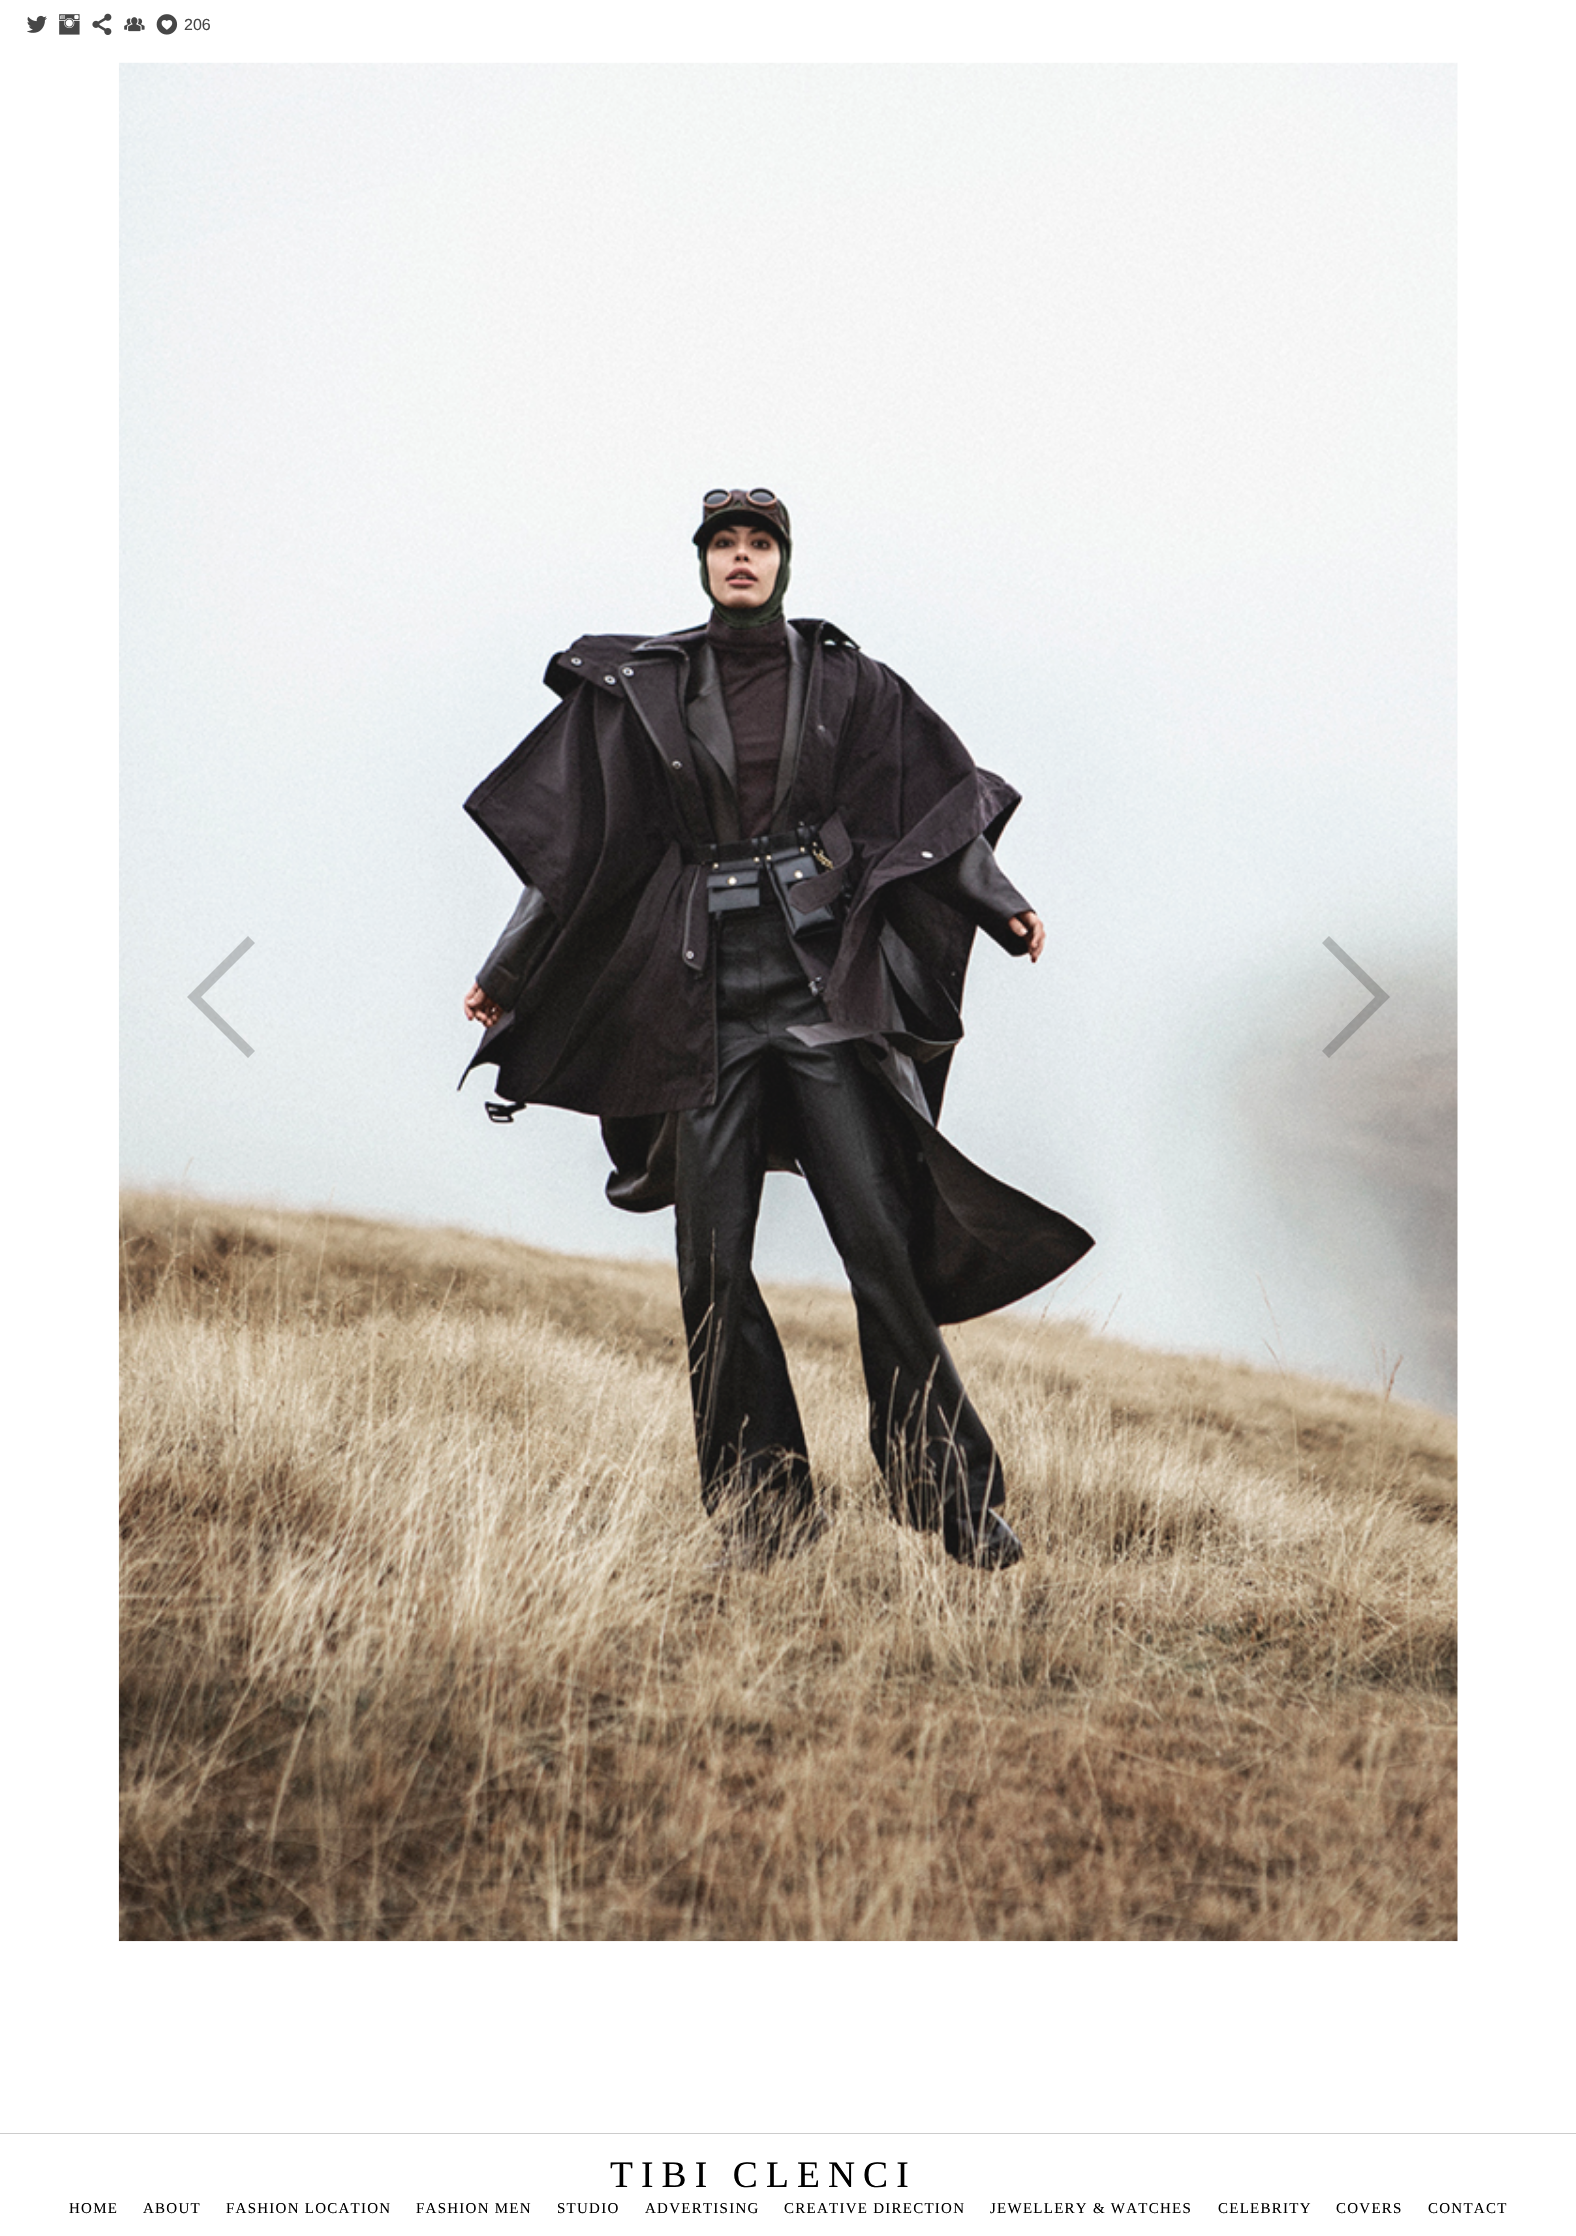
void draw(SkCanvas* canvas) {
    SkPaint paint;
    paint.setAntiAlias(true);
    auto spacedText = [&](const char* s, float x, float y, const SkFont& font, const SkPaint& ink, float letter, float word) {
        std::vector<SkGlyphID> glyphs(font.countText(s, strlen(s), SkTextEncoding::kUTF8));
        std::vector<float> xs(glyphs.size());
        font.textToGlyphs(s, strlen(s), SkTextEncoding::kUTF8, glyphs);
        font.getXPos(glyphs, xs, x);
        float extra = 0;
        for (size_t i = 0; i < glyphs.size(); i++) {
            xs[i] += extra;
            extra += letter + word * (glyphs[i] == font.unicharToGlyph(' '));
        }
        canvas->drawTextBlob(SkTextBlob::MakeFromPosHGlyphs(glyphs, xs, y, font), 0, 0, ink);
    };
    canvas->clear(0xFFFFFFFF);
    canvas->drawImageRect(SkImages::DeferredFromEncodedData(SkData::MakeFromFileName("img1.png")), SkRect::MakeXYWH(27, 15, 20, 18), SkSamplingOptions());
    canvas->drawImageRect(SkImages::DeferredFromEncodedData(SkData::MakeFromFileName("img2.png")), SkRect::MakeXYWH(59, 14, 21, 21), SkSamplingOptions());
    canvas->drawImageRect(SkImages::DeferredFromEncodedData(SkData::MakeFromFileName("img3.png")), SkRect::MakeXYWH(92, 13, 20, 22), SkSamplingOptions());
    canvas->drawImageRect(SkImages::DeferredFromEncodedData(SkData::MakeFromFileName("img4.png")), SkRect::MakeXYWH(124, 17, 21, 15), SkSamplingOptions());
    canvas->drawImageRect(SkImages::DeferredFromEncodedData(SkData::MakeFromFileName("img5.png")), SkRect::MakeXYWH(156, 14, 22, 21), SkSamplingOptions());
    SkFont font1(fontMgr->matchFamilyStyle("Liberation Sans", SkFontStyle::Normal()), 16);
    font1.setSubpixel(true);
    paint.setColor(0xFF474747);
    canvas->drawString("206", 184, 30, font1, paint);
    canvas->drawImageRect(SkImages::DeferredFromEncodedData(SkData::MakeFromFileName("img6.png")), SkRect::MakeXYWH(118, 62, 1340, 1880), SkSamplingOptions());
    paint.setColor(0x33000000);
    canvas->drawPath(SkPathBuilder().moveTo(248, 1058).lineTo(187, 997).lineTo(248, 936).lineTo(255, 943).lineTo(201, 997).lineTo(255, 1051).close().detach(), paint);
    canvas->drawPath(SkPathBuilder().moveTo(1390, 997).lineTo(1329, 1058).lineTo(1322, 1051).lineTo(1375, 997).lineTo(1322, 943).lineTo(1329, 936).close().detach(), paint);
    paint.setColor(0xFFCCCCCC);
    canvas->drawRect(SkRect::MakeXYWH(0, 2133, 1576, 1), paint);
    SkFont font2(fontMgr->matchFamilyStyle("Liberation Serif", SkFontStyle::Normal()), 37.5f);
    font2.setSubpixel(true);
    paint.setColor(0xFF000000);
    spacedText("TIBI CLENCI", 610, 2187, font2, paint, 8.1f, 0);
    SkFont font3(fontMgr->matchFamilyStyle("Liberation Serif", SkFontStyle::Normal()), 15);
    font3.setSubpixel(true);
    spacedText("HOME", 69, 2213, font3, paint, 1.25f, 0);
    spacedText("ABOUT", 143, 2213, font3, paint, 1.25f, 0);
    spacedText("FASHION LOCATION", 226, 2213, font3, paint, 1.25f, 0);
    spacedText("FASHION MEN", 416, 2213, font3, paint, 1.25f, 0);
    spacedText("STUDIO", 557, 2213, font3, paint, 1.25f, 0);
    spacedText("ADVERTISING", 645, 2213, font3, paint, 1.25f, 0);
    spacedText("CREATIVE DIRECTION", 784, 2213, font3, paint, 1.25f, 0);
    spacedText("JEWELLERY & WATCHES", 990, 2213, font3, paint, 1.25f, 0);
    spacedText("CELEBRITY", 1218, 2213, font3, paint, 1.25f, 0);
    spacedText("COVERS", 1336, 2213, font3, paint, 1.25f, 0);
    spacedText("CONTACT", 1428, 2213, font3, paint, 1.25f, 0);
}
